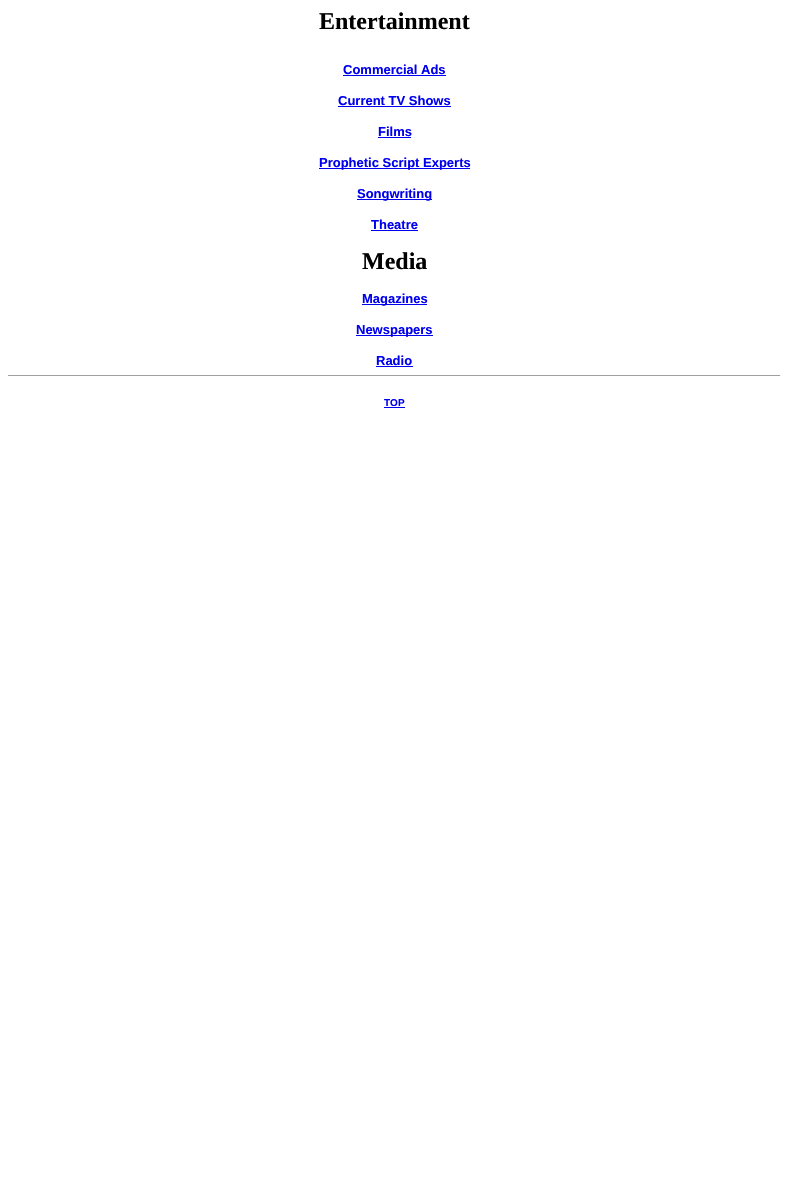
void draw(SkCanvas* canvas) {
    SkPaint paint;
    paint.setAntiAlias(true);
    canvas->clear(0xFFFFFFFF);
    SkFont font1(fontMgr->matchFamilyStyle("Liberation Serif", SkFontStyle::Bold()), 24);
    font1.setSubpixel(true);
    paint.setColor(0xFF000000);
    canvas->drawString("Entertainment", 319, 29, font1, paint);
    SkFont font2(fontMgr->matchFamilyStyle("Liberation Sans", SkFontStyle::Bold()), 13);
    font2.setSubpixel(true);
    paint.setColor(0xFF0000EE);
    canvas->drawString("Commercial Ads", 343, 74, font2, paint);
    canvas->drawRect(SkRect::MakeXYWH(343, 75, 103, 1), paint);
    canvas->drawString("Current TV Shows", 338, 105, font2, paint);
    canvas->drawRect(SkRect::MakeXYWH(338, 106, 113, 1), paint);
    canvas->drawString("Films", 378, 136, font2, paint);
    canvas->drawRect(SkRect::MakeXYWH(378, 137, 33, 1), paint);
    canvas->drawRect(SkRect::MakeXYWH(319, 168, 151, 1), paint);
    canvas->drawString("Prophetic Script Experts", 319, 167, font2, paint);
    canvas->drawRect(SkRect::MakeXYWH(357, 199, 75, 1), paint);
    canvas->drawString("Songwriting", 357, 198, font2, paint);
    canvas->drawString("Theatre", 371, 229, font2, paint);
    canvas->drawRect(SkRect::MakeXYWH(371, 230, 47, 1), paint);
    paint.setColor(0xFF000000);
    canvas->drawString("Media", 362, 269, font1, paint);
    paint.setColor(0xFF0000EE);
    canvas->drawRect(SkRect::MakeXYWH(362, 304, 65, 1), paint);
    canvas->drawString("Magazines", 362, 303, font2, paint);
    canvas->drawRect(SkRect::MakeXYWH(356, 335, 77, 1), paint);
    canvas->drawString("Newspapers", 356, 334, font2, paint);
    canvas->drawString("Radio", 376, 365, font2, paint);
    canvas->drawRect(SkRect::MakeXYWH(376, 366, 37, 1), paint);
    paint.setColor(0xFF9F9F9F);
    canvas->drawRect(SkRect::MakeXYWH(8, 375, 773, 1), paint);
    paint.setColor(0xFFEEEEEE);
    canvas->drawRect(SkRect::MakeXYWH(780, 375, 1, 1), paint);
    SkFont font3(fontMgr->matchFamilyStyle("Liberation Sans", SkFontStyle::Bold()), 10);
    font3.setSubpixel(true);
    paint.setColor(0xFF0000EE);
    canvas->drawString("TOP", 384, 406, font3, paint);
    canvas->drawRect(SkRect::MakeXYWH(384, 407, 21, 1), paint);
}
